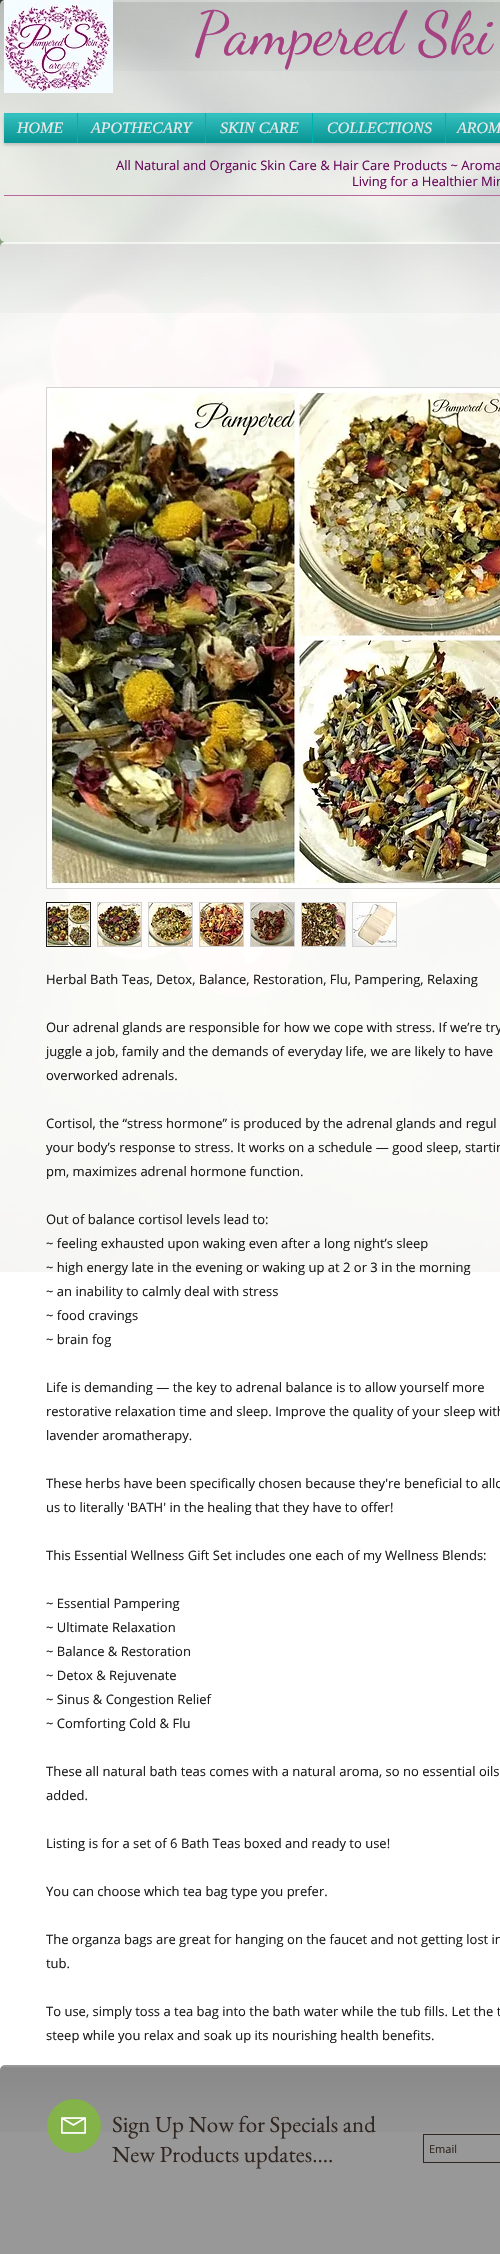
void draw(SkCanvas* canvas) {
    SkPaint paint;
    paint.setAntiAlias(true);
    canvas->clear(0xFFFFFFFF);
    canvas->drawImageRect(SkImages::DeferredFromEncodedData(SkData::MakeFromFileName("img1.png")), SkRect::MakeXYWH(0, 0, 500, 1272), SkSamplingOptions());
    paint.setColor(0xBFFFFFFF);
    canvas->drawRoundRect(SkRect::MakeXYWH(0, 0, 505, 242), 5, 5, paint);
    canvas->drawImageRect(SkImages::DeferredFromEncodedData(SkData::MakeFromFileName("img2.png")), SkRect::MakeXYWH(0, 2, 500, 69), SkSamplingOptions());
    canvas->drawImageRect(SkImages::DeferredFromEncodedData(SkData::MakeFromFileName("img3.png")), SkRect::MakeXYWH(4, 0, 109, 93), SkSamplingOptions());
    SkFont font1(fontMgr->matchFamilyStyle("Dancing Script", SkFontStyle::Normal()), 60);
    font1.setSubpixel(true);
    paint.setColor(0xFFA64182);
    canvas->drawString("Pampered Ski", 194, 53, font1, paint);
    paint.setColor(0x99A29E9E);
    paint.setMaskFilter(SkMaskFilter::MakeBlur(kNormal_SkBlurStyle, 1.5f));
    canvas->drawRect(SkRect::MakeXYWH(4, 115, 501, 30), paint);
    paint.setMaskFilter(nullptr);
    paint.setColor(0xFF01B1AF);
    canvas->drawRect(SkRect::MakeXYWH(4, 113, 496, 30), paint);
    SkFont font2(fontMgr->matchFamilyStyle("Liberation Serif", SkFontStyle::Italic()), 16);
    font2.setSubpixel(true);
    paint.setColor(0xFFFFFFFF);
    canvas->drawString("HOME", 17, 133, font2, paint);
    canvas->drawImageRect(SkImages::DeferredFromEncodedData(SkData::MakeFromFileName("img4.png")), SkRect::MakeXYWH(4, 113, 73, 30), SkSamplingOptions());
    canvas->drawImageRect(SkImages::DeferredFromEncodedData(SkData::MakeFromFileName("img5.png")), SkRect::MakeXYWH(4, 117, 73, 26), SkSamplingOptions());
    canvas->drawString("APOTHECARY", 91, 133, font2, paint);
    canvas->drawImageRect(SkImages::DeferredFromEncodedData(SkData::MakeFromFileName("img6.png")), SkRect::MakeXYWH(78, 113, 127, 30), SkSamplingOptions());
    canvas->drawImageRect(SkImages::DeferredFromEncodedData(SkData::MakeFromFileName("img7.png")), SkRect::MakeXYWH(78, 117, 127, 26), SkSamplingOptions());
    canvas->drawString("SKIN CARE", 220, 133, font2, paint);
    canvas->drawImageRect(SkImages::DeferredFromEncodedData(SkData::MakeFromFileName("img8.png")), SkRect::MakeXYWH(206, 113, 106, 30), SkSamplingOptions());
    canvas->drawImageRect(SkImages::DeferredFromEncodedData(SkData::MakeFromFileName("img9.png")), SkRect::MakeXYWH(206, 117, 106, 26), SkSamplingOptions());
    canvas->drawString("COLLECTIONS", 327, 133, font2, paint);
    canvas->drawImageRect(SkImages::DeferredFromEncodedData(SkData::MakeFromFileName("img10.png")), SkRect::MakeXYWH(313, 113, 132, 30), SkSamplingOptions());
    canvas->drawImageRect(SkImages::DeferredFromEncodedData(SkData::MakeFromFileName("img11.png")), SkRect::MakeXYWH(313, 117, 132, 26), SkSamplingOptions());
    canvas->drawString("AROM", 457, 133, font2, paint);
    canvas->drawImageRect(SkImages::DeferredFromEncodedData(SkData::MakeFromFileName("img12.png")), SkRect::MakeXYWH(446, 113, 54, 30), SkSamplingOptions());
    canvas->drawImageRect(SkImages::DeferredFromEncodedData(SkData::MakeFromFileName("img13.png")), SkRect::MakeXYWH(446, 117, 54, 26), SkSamplingOptions());
    SkFont font3(fontMgr->matchFamilyStyle("Open Sans", SkFontStyle::Normal()), 13);
    font3.setSubpixel(true);
    paint.setColor(0xFF660658);
    canvas->drawString("All Natural and Organic Skin Care & Hair Care Products ~ Aroma", 116, 170, font3, paint);
    canvas->drawString("Living for a Healthier Min", 352, 186, font3, paint);
    paint.setColor(0xFFB6689A);
    canvas->drawRect(SkRect::MakeXYWH(4, 195, 496, 1), paint);
    paint.setColor(0xE6FFFFFF);
    canvas->drawRoundRect(SkRect::MakeXYWH(0, 242, 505, 1850), 5, 5, paint);
    canvas->drawImageRect(SkImages::DeferredFromEncodedData(SkData::MakeFromFileName("img14.png")), SkRect::MakeXYWH(0, 244, 500, 69), SkSamplingOptions());
    paint.setStyle(SkPaint::kStroke_Style);
    paint.setStrokeWidth(1);
    paint.setColor(0xFFD4D3D3);
    canvas->drawRect(SkRect::MakeXYWH(46.5f, 387.5f, 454, 501), paint);
    canvas->drawImageRect(SkImages::DeferredFromEncodedData(SkData::MakeFromFileName("img15.png")), SkRect::MakeXYWH(47, 388, 453, 500), SkSamplingOptions());
    paint.setColor(0xFF1A1A1A);
    canvas->drawRect(SkRect::MakeXYWH(46.5f, 902.5f, 44, 44), paint);
    canvas->drawImageRect(SkImages::DeferredFromEncodedData(SkData::MakeFromFileName("img16.png")), SkRect::MakeXYWH(47, 903, 43, 43), SkSamplingOptions());
    paint.setStyle(SkPaint::kFill_Style);
    paint.setColor(0xFFD4D3D3);
    canvas->drawRect(SkRect::MakeXYWH(97, 902, 45, 45), paint);
    canvas->drawImageRect(SkImages::DeferredFromEncodedData(SkData::MakeFromFileName("img17.png")), SkRect::MakeXYWH(98, 903, 43, 43), SkSamplingOptions());
    canvas->drawRect(SkRect::MakeXYWH(148, 902, 45, 45), paint);
    canvas->drawImageRect(SkImages::DeferredFromEncodedData(SkData::MakeFromFileName("img18.png")), SkRect::MakeXYWH(149, 903, 43, 43), SkSamplingOptions());
    canvas->drawRect(SkRect::MakeXYWH(199, 902, 45, 45), paint);
    canvas->drawImageRect(SkImages::DeferredFromEncodedData(SkData::MakeFromFileName("img19.png")), SkRect::MakeXYWH(200, 903, 43, 43), SkSamplingOptions());
    canvas->drawRect(SkRect::MakeXYWH(250, 902, 45, 45), paint);
    canvas->drawImageRect(SkImages::DeferredFromEncodedData(SkData::MakeFromFileName("img20.png")), SkRect::MakeXYWH(251, 903, 43, 43), SkSamplingOptions());
    canvas->drawRect(SkRect::MakeXYWH(301, 902, 45, 45), paint);
    canvas->drawImageRect(SkImages::DeferredFromEncodedData(SkData::MakeFromFileName("img21.png")), SkRect::MakeXYWH(302, 903, 43, 43), SkSamplingOptions());
    canvas->drawRect(SkRect::MakeXYWH(352, 902, 45, 45), paint);
    canvas->drawImageRect(SkImages::DeferredFromEncodedData(SkData::MakeFromFileName("img22.png")), SkRect::MakeXYWH(353, 903, 43, 43), SkSamplingOptions());
    paint.setColor(0xFF1A1A1A);
    canvas->drawString("Herbal Bath Teas, Detox, Balance, Restoration, Flu, Pampering, Relaxing", 46, 984, font3, paint);
    canvas->drawString("Our adrenal glands are responsible for how we cope with stress. If we’re try", 46, 1032, font3, paint);
    canvas->drawString("juggle a job, family and the demands of everyday life, we are likely to have", 46, 1056, font3, paint);
    canvas->drawString("overworked adrenals.", 46, 1080, font3, paint);
    canvas->drawString("Cortisol, the “stress hormone” is produced by the adrenal glands and regul", 46, 1128, font3, paint);
    canvas->drawString("your body’s response to stress. It works on a schedule — good sleep, startin", 46, 1152, font3, paint);
    canvas->drawString("pm, maximizes adrenal hormone function.", 46, 1176, font3, paint);
    canvas->drawString("Out of balance cortisol levels lead to:", 46, 1224, font3, paint);
    canvas->drawString("~ feeling exhausted upon waking even after a long night’s sleep", 46, 1248, font3, paint);
    canvas->drawString("~ high energy late in the evening or waking up at 2 or 3 in the morning", 46, 1272, font3, paint);
    canvas->drawString("~ an inability to calmly deal with stress", 46, 1296, font3, paint);
    canvas->drawString("~ food cravings", 46, 1320, font3, paint);
    canvas->drawString("~ brain fog", 46, 1344, font3, paint);
    canvas->drawString("Life is demanding — the key to adrenal balance is to allow yourself more", 46, 1392, font3, paint);
    canvas->drawString("restorative relaxation time and sleep. Improve the quality of your sleep with", 46, 1416, font3, paint);
    canvas->drawString("lavender aromatherapy.", 46, 1440, font3, paint);
    canvas->drawString("These herbs have been specifically chosen because they're beneficial to allo", 46, 1488, font3, paint);
    canvas->drawString("us to literally 'BATH' in the healing that they have to offer!", 46, 1512, font3, paint);
    canvas->drawString("This Essential Wellness Gift Set includes one each of my Wellness Blends:", 46, 1560, font3, paint);
    canvas->drawString("~ Essential Pampering", 46, 1608, font3, paint);
    canvas->drawString("~ Ultimate Relaxation", 46, 1632, font3, paint);
    canvas->drawString("~ Balance & Restoration", 46, 1656, font3, paint);
    canvas->drawString("~ Detox & Rejuvenate", 46, 1680, font3, paint);
    canvas->drawString("~ Sinus & Congestion Relief", 46, 1704, font3, paint);
    canvas->drawString("~ Comforting Cold & Flu", 46, 1728, font3, paint);
    canvas->drawString("These all natural bath teas comes with a natural aroma, so no essential oils", 46, 1776, font3, paint);
    canvas->drawString("added.", 46, 1800, font3, paint);
    canvas->drawString("Listing is for a set of 6 Bath Teas boxed and ready to use!", 46, 1848, font3, paint);
    canvas->drawString("You can choose which tea bag type you prefer.", 46, 1896, font3, paint);
    canvas->drawString("The organza bags are great for hanging on the faucet and not getting lost in", 46, 1944, font3, paint);
    canvas->drawString("tub.", 46, 1968, font3, paint);
    canvas->drawString("To use, simply toss a tea bag into the bath water while the tub fills. Let the t", 46, 2016, font3, paint);
    canvas->drawString("steep while you relax and soak up its nourishing health benefits.", 46, 2040, font3, paint);
    paint.setColor(0xFF989898);
    canvas->drawRoundRect(SkRect::MakeXYWH(0, 2065, 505, 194), 5, 5, paint);
    canvas->drawImageRect(SkImages::DeferredFromEncodedData(SkData::MakeFromFileName("img23.png")), SkRect::MakeXYWH(0, 2067, 500, 65), SkSamplingOptions());
    paint.setColor(0xFF83B349);
    canvas->drawCircle(74, 2126, 27, paint);
    canvas->drawImageRect(SkImages::DeferredFromEncodedData(SkData::MakeFromFileName("img24.png")), SkRect::MakeXYWH(61, 2117, 25, 17), SkSamplingOptions());
    SkFont font4(fontMgr->matchFamilyStyle("EB Garamond", SkFontStyle::Normal()), 23);
    font4.setSubpixel(true);
    paint.setColor(0xFF30251F);
    canvas->drawString("Sign Up Now for Specials and", 112, 2132, font4, paint);
    canvas->drawString("New Products updates....", 112, 2162, font4, paint);
    paint.setStyle(SkPaint::kStroke_Style);
    canvas->drawRect(SkRect::MakeXYWH(423.5f, 2134.5f, 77, 28), paint);
    SkFont font5(fontMgr->matchFamilyStyle("Open Sans", SkFontStyle::Normal()), 11);
    font5.setSubpixel(true);
    paint.setStyle(SkPaint::kFill_Style);
    canvas->drawString("Email", 429, 2153, font5, paint);
}
